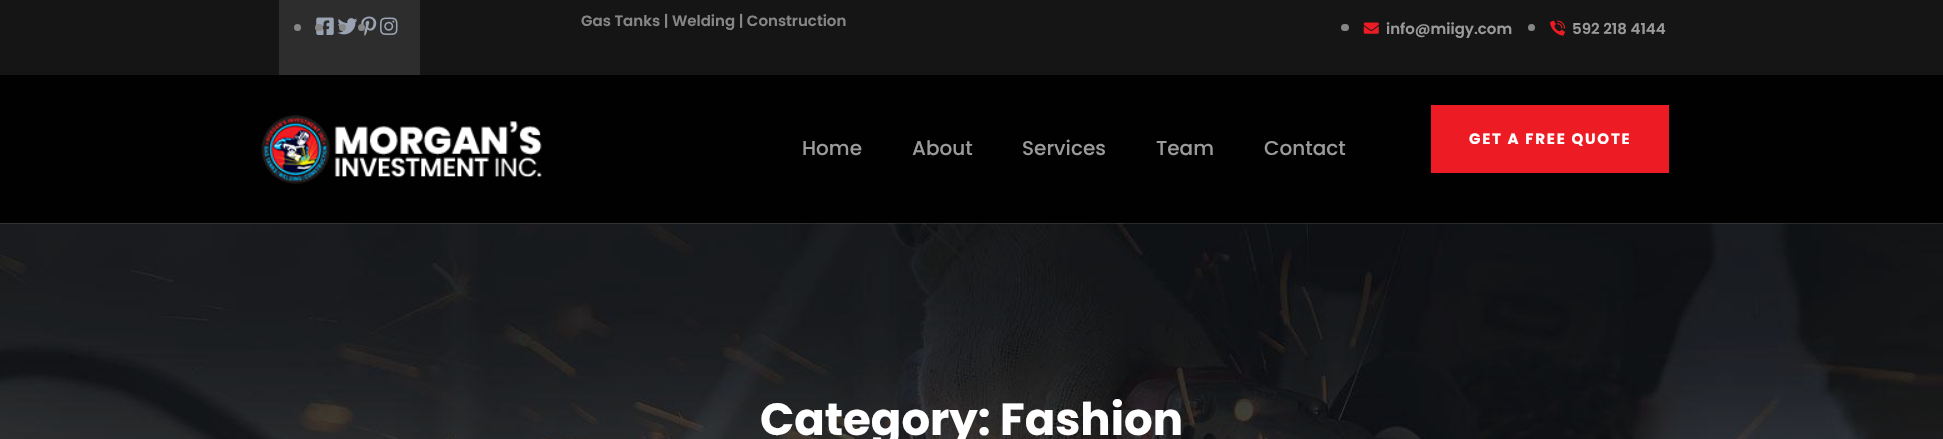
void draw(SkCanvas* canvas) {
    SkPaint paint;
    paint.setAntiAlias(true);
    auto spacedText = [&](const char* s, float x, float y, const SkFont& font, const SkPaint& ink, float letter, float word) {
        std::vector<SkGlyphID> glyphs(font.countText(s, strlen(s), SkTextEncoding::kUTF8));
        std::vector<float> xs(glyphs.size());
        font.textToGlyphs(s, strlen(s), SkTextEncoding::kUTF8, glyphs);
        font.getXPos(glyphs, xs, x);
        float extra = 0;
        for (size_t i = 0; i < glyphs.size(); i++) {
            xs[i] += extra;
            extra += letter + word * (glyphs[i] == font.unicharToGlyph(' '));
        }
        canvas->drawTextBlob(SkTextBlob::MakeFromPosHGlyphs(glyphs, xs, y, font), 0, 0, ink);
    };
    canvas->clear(0xFFFFFFFF);
    paint.setColor(0xFF151515);
    canvas->drawRect(SkRect::MakeXYWH(0, 0, 1943, 75), paint);
    paint.setColor(0xFF2D2D2D);
    canvas->drawRect(SkRect::MakeXYWH(279, 0, 141, 75), paint);
    paint.setColor(0xFF868686);
    canvas->drawCircle(297.5f, 27.5f, 3.5f, paint);
    canvas->drawImageRect(SkImages::DeferredFromEncodedData(SkData::MakeFromFileName("img1.png")), SkRect::MakeXYWH(316, 17, 18, 18), SkSamplingOptions());
    canvas->drawImageRect(SkImages::DeferredFromEncodedData(SkData::MakeFromFileName("img3.png")), SkRect::MakeXYWH(337, 18, 21, 17), SkSamplingOptions());
    canvas->drawCircle(342.5f, 27.5f, 3.5f, paint);
    canvas->drawImageRect(SkImages::DeferredFromEncodedData(SkData::MakeFromFileName("img2.png")), SkRect::MakeXYWH(361, 16, 16, 20), SkSamplingOptions());
    canvas->drawRoundRect(SkRect::MakeXYWH(315, 24, 8, 7), 3.5f, 3.5f, paint);
    canvas->drawCircle(361.5f, 27.5f, 3.5f, paint);
    canvas->drawImageRect(SkImages::DeferredFromEncodedData(SkData::MakeFromFileName("img4.png")), SkRect::MakeXYWH(380, 17, 18, 18), SkSamplingOptions());
    SkFont font1(fontMgr->matchFamilyStyle("Poppins", SkFontStyle(600, SkFontStyle::kNormal_Width, SkFontStyle::kUpright_Slant)), 15);
    font1.setSubpixel(true);
    canvas->drawString("Gas Tanks | Welding | Construction", 581, 26, font1, paint);
    canvas->drawRoundRect(SkRect::MakeXYWH(1341, 24, 8, 7), 3.5f, 3.5f, paint);
    canvas->drawImageRect(SkImages::DeferredFromEncodedData(SkData::MakeFromFileName("img5.png")), SkRect::MakeXYWH(1363, 22, 16, 12), SkSamplingOptions());
    paint.setColor(0xFF9A9A9A);
    canvas->drawString("info@miigy.com", 1386, 34, font1, paint);
    paint.setColor(0xFF868686);
    canvas->drawCircle(1531.5f, 27.5f, 3.5f, paint);
    canvas->drawImageRect(SkImages::DeferredFromEncodedData(SkData::MakeFromFileName("img6.png")), SkRect::MakeXYWH(1550, 20, 15, 16), SkSamplingOptions());
    paint.setColor(0xFF9A9A9A);
    canvas->drawString("592 218 4144", 1572, 34, font1, paint);
    canvas->drawImageRect(SkImages::DeferredFromEncodedData(SkData::MakeFromFileName("img8.png")), SkRect::MakeXYWH(0, 223, 1943, 216), SkSamplingOptions());
    paint.setColor(0x1AFFFFFF);
    canvas->drawPath(SkPathBuilder().moveTo(0, 222).lineTo(0, 224).lineTo(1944, 224).lineTo(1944, 76).lineTo(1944, 222).close().detach(), paint);
    paint.setColor(0xFF020101);
    canvas->drawRect(SkRect::MakeXYWH(0, 75, 1943, 148), paint);
    canvas->drawImageRect(SkImages::DeferredFromEncodedData(SkData::MakeFromFileName("img7.png")), SkRect::MakeXYWH(261, 115, 281, 69), SkSamplingOptions());
    SkFont font2(fontMgr->matchFamilyStyle("Poppins", SkFontStyle(500, SkFontStyle::kNormal_Width, SkFontStyle::kUpright_Slant)), 20);
    font2.setSubpixel(true);
    paint.setColor(0xFF9A9A9A);
    canvas->drawString("Home", 802, 155, font2, paint);
    canvas->drawString("About", 912, 155, font2, paint);
    canvas->drawString("Services", 1022, 155, font2, paint);
    canvas->drawString("Team", 1156, 155, font2, paint);
    canvas->drawString("Contact", 1264, 155, font2, paint);
    paint.setColor(0xFFED1C24);
    canvas->drawRect(SkRect::MakeXYWH(1431, 105, 238, 68), paint);
    SkFont font3(fontMgr->matchFamilyStyle("Poppins", SkFontStyle::Bold()), 15);
    font3.setSubpixel(true);
    paint.setColor(0xFFFFFFFF);
    spacedText("GET A FREE QUOTE", 1469, 144, font3, paint, 1.75f, 0);
    SkFont font4(fontMgr->matchFamilyStyle("Poppins", SkFontStyle::Bold()), 45);
    font4.setSubpixel(true);
    canvas->drawString("Category: Fashion", 760, 435, font4, paint);
}
